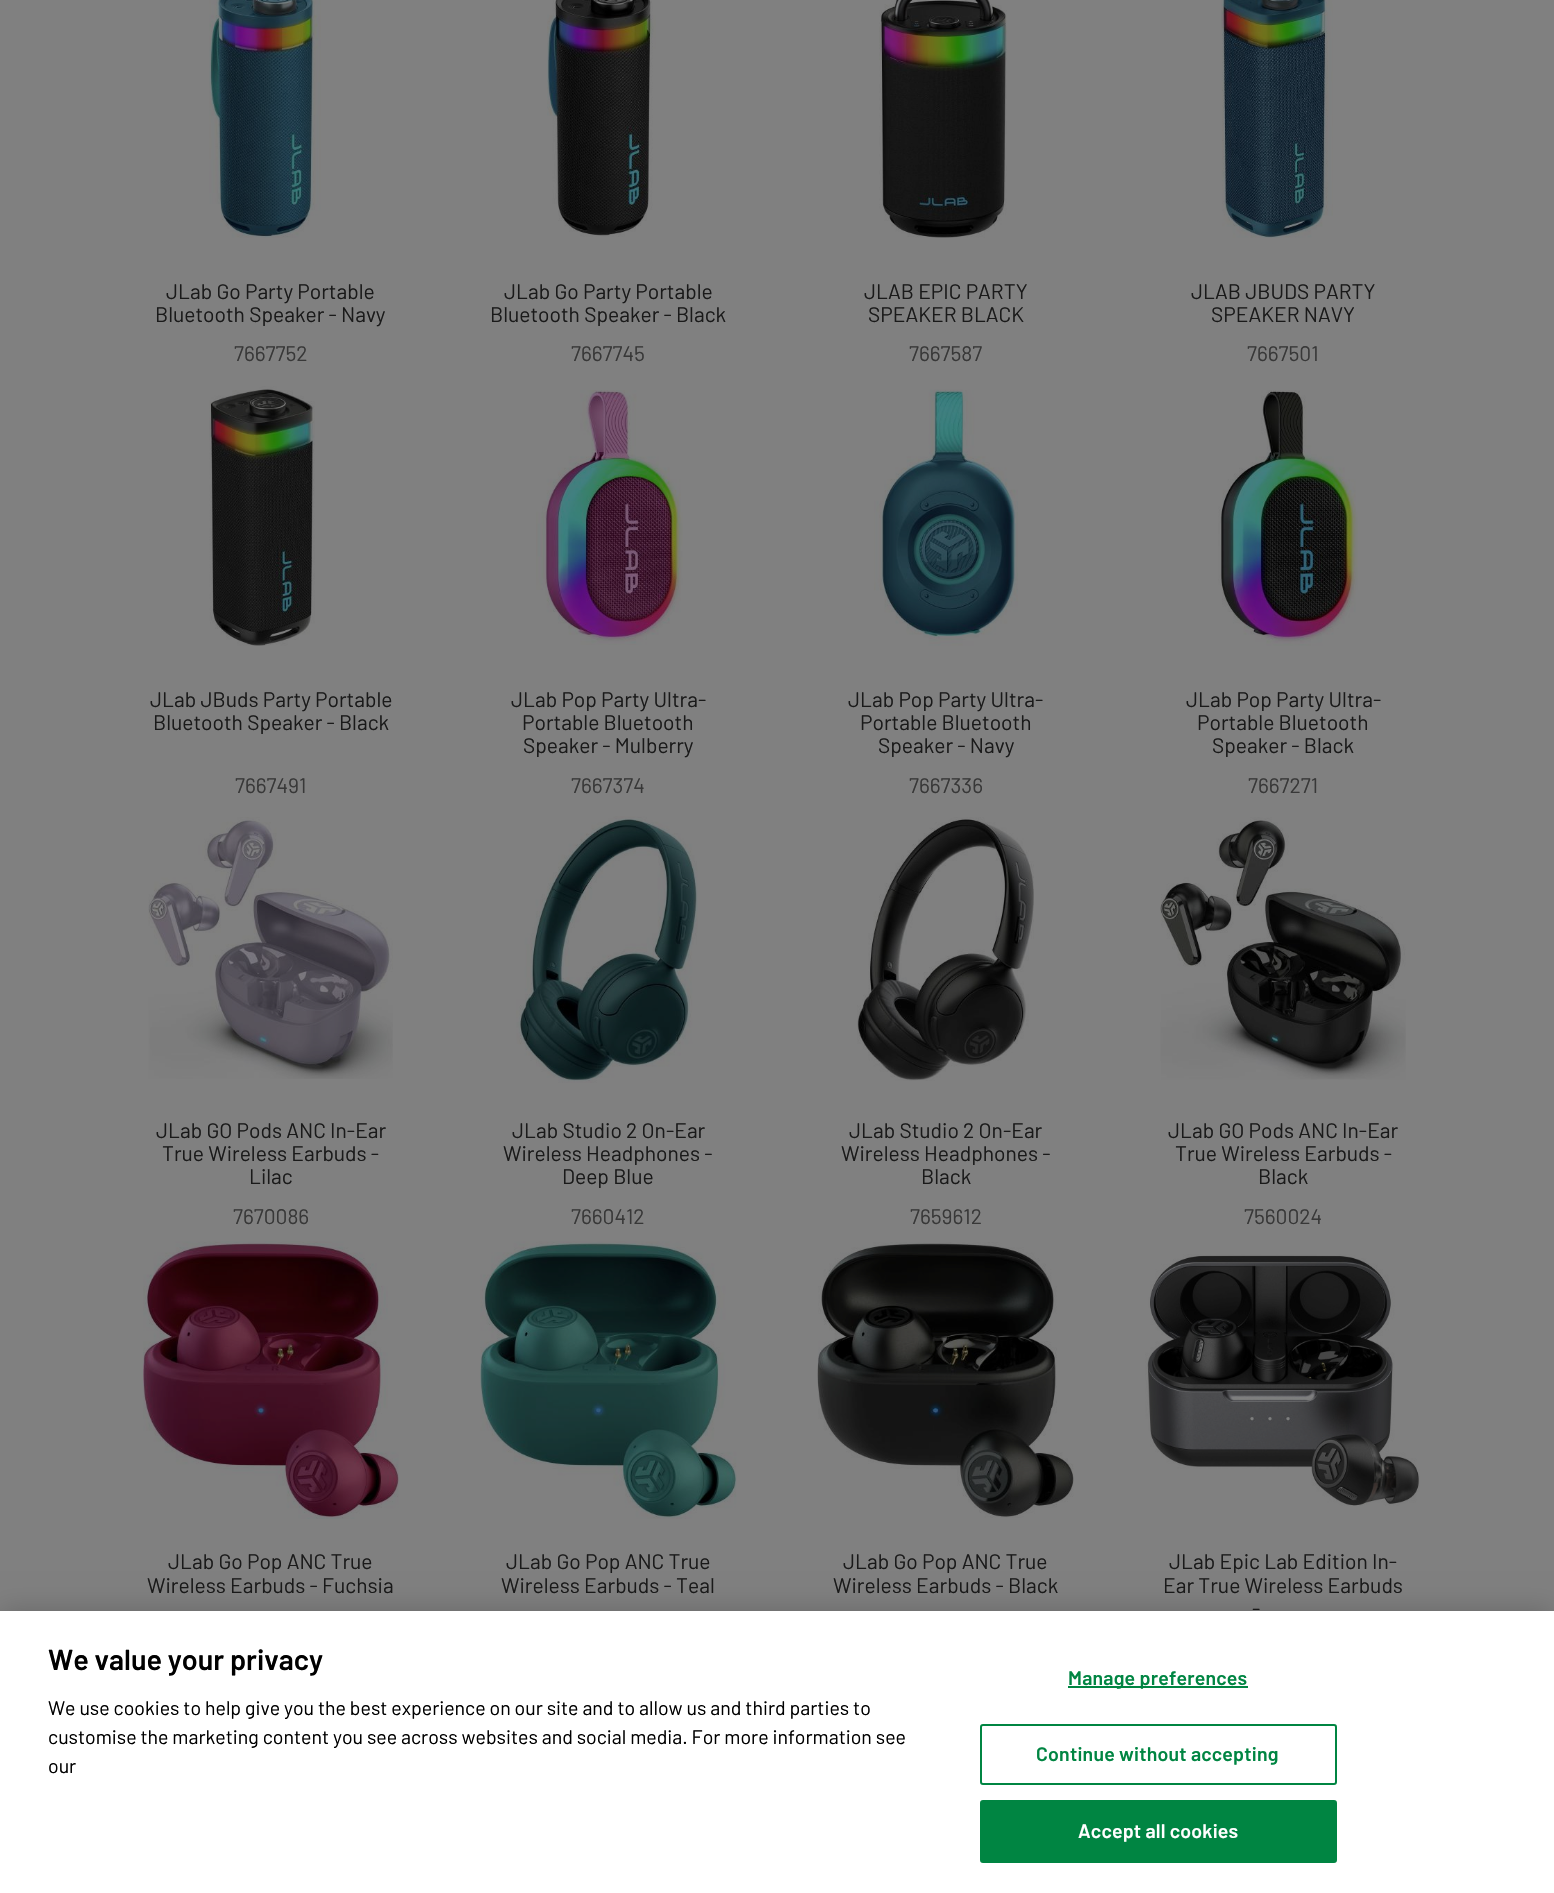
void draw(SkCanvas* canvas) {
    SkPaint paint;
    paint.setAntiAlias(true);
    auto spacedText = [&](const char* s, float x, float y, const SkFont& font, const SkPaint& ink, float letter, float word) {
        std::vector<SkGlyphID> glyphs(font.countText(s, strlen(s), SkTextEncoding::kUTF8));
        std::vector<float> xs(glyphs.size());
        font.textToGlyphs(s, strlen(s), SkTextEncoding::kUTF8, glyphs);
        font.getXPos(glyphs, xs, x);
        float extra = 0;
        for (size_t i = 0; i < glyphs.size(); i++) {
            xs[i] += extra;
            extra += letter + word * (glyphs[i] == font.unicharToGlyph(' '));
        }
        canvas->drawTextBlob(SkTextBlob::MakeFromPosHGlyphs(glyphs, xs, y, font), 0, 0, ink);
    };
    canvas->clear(0xFF808080);
    canvas->drawImageRect(SkImages::DeferredFromEncodedData(SkData::MakeFromFileName("img1.png")), SkRect::MakeXYWH(209, 0, 112, 238), SkSamplingOptions());
    SkFont font1(fontMgr->matchFamilyStyle("Barlow", SkFontStyle::Normal()), 21);
    font1.setSubpixel(true);
    paint.setColor(0xFF1A1A1A);
    canvas->drawString("JLab Go Party Portable", 166, 299, font1, paint);
    canvas->drawString("Bluetooth Speaker - Navy", 155, 322, font1, paint);
    paint.setColor(0xFF383838);
    canvas->drawString("7667752", 234, 361, font1, paint);
    canvas->drawImageRect(SkImages::DeferredFromEncodedData(SkData::MakeFromFileName("img2.png")), SkRect::MakeXYWH(547, 0, 109, 237), SkSamplingOptions());
    paint.setColor(0xFF1A1A1A);
    canvas->drawString("JLab Go Party Portable", 504, 299, font1, paint);
    canvas->drawString("Bluetooth Speaker - Black", 490, 322, font1, paint);
    paint.setColor(0xFF383838);
    canvas->drawString("7667745", 571, 361, font1, paint);
    canvas->drawImageRect(SkImages::DeferredFromEncodedData(SkData::MakeFromFileName("img3.png")), SkRect::MakeXYWH(879, 0, 128, 238), SkSamplingOptions());
    paint.setColor(0xFF1A1A1A);
    canvas->drawString("JLAB EPIC PARTY", 864, 299, font1, paint);
    canvas->drawString("SPEAKER BLACK", 868, 322, font1, paint);
    paint.setColor(0xFF383838);
    canvas->drawString("7667587", 909, 361, font1, paint);
    canvas->drawImageRect(SkImages::DeferredFromEncodedData(SkData::MakeFromFileName("img4.png")), SkRect::MakeXYWH(1221, 0, 112, 238), SkSamplingOptions());
    paint.setColor(0xFF1A1A1A);
    canvas->drawString("JLAB JBUDS PARTY", 1191, 299, font1, paint);
    canvas->drawString("SPEAKER NAVY", 1211, 322, font1, paint);
    paint.setColor(0xFF383838);
    canvas->drawString("7667501", 1247, 361, font1, paint);
    canvas->drawImageRect(SkImages::DeferredFromEncodedData(SkData::MakeFromFileName("img5.png")), SkRect::MakeXYWH(209, 386, 106, 260), SkSamplingOptions());
    paint.setColor(0xFF1A1A1A);
    canvas->drawString("JLab JBuds Party Portable", 150, 707, font1, paint);
    canvas->drawString("Bluetooth Speaker - Black", 153, 730, font1, paint);
    paint.setColor(0xFF383838);
    canvas->drawString("7667491", 235, 793, font1, paint);
    canvas->drawImageRect(SkImages::DeferredFromEncodedData(SkData::MakeFromFileName("img6.png")), SkRect::MakeXYWH(536, 390, 147, 255), SkSamplingOptions());
    paint.setColor(0xFF1A1A1A);
    canvas->drawString("JLab Pop Party Ultra-", 511, 707, font1, paint);
    canvas->drawString("Portable Bluetooth", 522, 730, font1, paint);
    canvas->drawString("Speaker - Mulberry", 523, 753, font1, paint);
    paint.setColor(0xFF383838);
    canvas->drawString("7667374", 571, 793, font1, paint);
    canvas->drawImageRect(SkImages::DeferredFromEncodedData(SkData::MakeFromFileName("img7.png")), SkRect::MakeXYWH(874, 389, 144, 257), SkSamplingOptions());
    paint.setColor(0xFF1A1A1A);
    canvas->drawString("JLab Pop Party Ultra-", 848, 707, font1, paint);
    canvas->drawString("Portable Bluetooth", 860, 730, font1, paint);
    canvas->drawString("Speaker - Navy", 878, 753, font1, paint);
    paint.setColor(0xFF383838);
    canvas->drawString("7667336", 909, 793, font1, paint);
    canvas->drawImageRect(SkImages::DeferredFromEncodedData(SkData::MakeFromFileName("img8.png")), SkRect::MakeXYWH(1218, 390, 140, 256), SkSamplingOptions());
    paint.setColor(0xFF1A1A1A);
    canvas->drawString("JLab Pop Party Ultra-", 1186, 707, font1, paint);
    canvas->drawString("Portable Bluetooth", 1197, 730, font1, paint);
    canvas->drawString("Speaker - Black", 1212, 753, font1, paint);
    paint.setColor(0xFF383838);
    canvas->drawString("7667271", 1248, 793, font1, paint);
    canvas->drawImageRect(SkImages::DeferredFromEncodedData(SkData::MakeFromFileName("img9.png")), SkRect::MakeXYWH(148, 817, 245, 262), SkSamplingOptions());
    paint.setColor(0xFF1A1A1A);
    canvas->drawString("JLab GO Pods ANC In-Ear", 156, 1138, font1, paint);
    canvas->drawString("True Wireless Earbuds -", 162, 1161, font1, paint);
    canvas->drawString("Lilac", 249, 1184, font1, paint);
    paint.setColor(0xFF383838);
    canvas->drawString("7670086", 233, 1224, font1, paint);
    canvas->drawImageRect(SkImages::DeferredFromEncodedData(SkData::MakeFromFileName("img10.png")), SkRect::MakeXYWH(516, 816, 182, 267), SkSamplingOptions());
    paint.setColor(0xFF1A1A1A);
    canvas->drawString("JLab Studio 2 On-Ear", 512, 1138, font1, paint);
    canvas->drawString("Wireless Headphones -", 503, 1161, font1, paint);
    canvas->drawString("Deep Blue", 562, 1184, font1, paint);
    paint.setColor(0xFF383838);
    canvas->drawString("7660412", 571, 1224, font1, paint);
    canvas->drawImageRect(SkImages::DeferredFromEncodedData(SkData::MakeFromFileName("img11.png")), SkRect::MakeXYWH(857, 817, 177, 264), SkSamplingOptions());
    paint.setColor(0xFF1A1A1A);
    canvas->drawString("JLab Studio 2 On-Ear", 849, 1138, font1, paint);
    canvas->drawString("Wireless Headphones -", 841, 1161, font1, paint);
    canvas->drawString("Black", 921, 1184, font1, paint);
    paint.setColor(0xFF383838);
    canvas->drawString("7659612", 910, 1224, font1, paint);
    canvas->drawImageRect(SkImages::DeferredFromEncodedData(SkData::MakeFromFileName("img12.png")), SkRect::MakeXYWH(1160, 817, 246, 263), SkSamplingOptions());
    paint.setColor(0xFF1A1A1A);
    canvas->drawString("JLab GO Pods ANC In-Ear", 1168, 1138, font1, paint);
    canvas->drawString("True Wireless Earbuds -", 1175, 1161, font1, paint);
    canvas->drawString("Black", 1258, 1184, font1, paint);
    paint.setColor(0xFF383838);
    canvas->drawString("7560024", 1244, 1224, font1, paint);
    canvas->drawImageRect(SkImages::DeferredFromEncodedData(SkData::MakeFromFileName("img13.png")), SkRect::MakeXYWH(143, 1241, 256, 278), SkSamplingOptions());
    paint.setColor(0xFF1A1A1A);
    canvas->drawString("JLab Go Pop ANC True", 168, 1569, font1, paint);
    canvas->drawString("Wireless Earbuds - Fuchsia", 147, 1593, font1, paint);
    canvas->drawImageRect(SkImages::DeferredFromEncodedData(SkData::MakeFromFileName("img14.png")), SkRect::MakeXYWH(480, 1241, 257, 278), SkSamplingOptions());
    canvas->drawString("JLab Go Pop ANC True", 506, 1569, font1, paint);
    canvas->drawString("Wireless Earbuds - Teal", 501, 1593, font1, paint);
    canvas->drawImageRect(SkImages::DeferredFromEncodedData(SkData::MakeFromFileName("img15.png")), SkRect::MakeXYWH(817, 1242, 257, 276), SkSamplingOptions());
    canvas->drawString("JLab Go Pop ANC True", 843, 1569, font1, paint);
    canvas->drawString("Wireless Earbuds - Black", 833, 1593, font1, paint);
    canvas->drawImageRect(SkImages::DeferredFromEncodedData(SkData::MakeFromFileName("img16.png")), SkRect::MakeXYWH(1145, 1254, 275, 252), SkSamplingOptions());
    canvas->drawString("JLab Epic Lab Edition In-", 1169, 1569, font1, paint);
    canvas->drawString("Ear True Wireless Earbuds", 1163, 1593, font1, paint);
    canvas->drawString("-", 1252, 1616, font1, paint);
    paint.setColor(0x33000000);
    paint.setMaskFilter(SkMaskFilter::MakeBlur(kNormal_SkBlurStyle, 13.5f));
    canvas->drawRect(SkRect::MakeXYWH(0, 1611, 1554, 282), paint);
    paint.setMaskFilter(nullptr);
    paint.setColor(0xFFFFFFFF);
    canvas->drawRect(SkRect::MakeXYWH(0, 1611, 1554, 282), paint);
    SkFont font2(fontMgr->matchFamilyStyle("Barlow", SkFontStyle(600, SkFontStyle::kNormal_Width, SkFontStyle::kUpright_Slant)), 28.75f);
    font2.setSubpixel(true);
    paint.setColor(0xFF000000);
    canvas->drawString("We value your privacy", 48, 1670, font2, paint);
    SkFont font3(fontMgr->matchFamilyStyle("Barlow", SkFontStyle::Normal()), 19.5f);
    font3.setSubpixel(true);
    canvas->drawString("We use cookies to help give you the best experience on our site and to allow us and third parties to", 48, 1715, font3, paint);
    canvas->drawString("customise the marketing content you see across websites and social media. For more information see", 48, 1744, font3, paint);
    canvas->drawString("our", 48, 1773, font3, paint);
    paint.setColor(0xFF008542);
    canvas->drawRect(SkRect::MakeXYWH(1068, 1686, 180, 2), paint);
    SkFont font4(fontMgr->matchFamilyStyle("Barlow", SkFontStyle(600, SkFontStyle::kNormal_Width, SkFontStyle::kUpright_Slant)), 19.5f);
    font4.setSubpixel(true);
    spacedText("Manage preferences", 1068, 1685, font4, paint, 0.2f, 0);
    paint.setStyle(SkPaint::kStroke_Style);
    paint.setStrokeWidth(2);
    canvas->drawRoundRect(SkRect::MakeXYWH(981, 1725, 355, 59), 2, 2, paint);
    paint.setStyle(SkPaint::kFill_Style);
    spacedText("Continue without accepting", 1036, 1761, font4, paint, 0.2f, 0);
    canvas->drawRoundRect(SkRect::MakeXYWH(981, 1801, 355, 61), 2, 2, paint);
    paint.setStyle(SkPaint::kStroke_Style);
    canvas->drawRoundRect(SkRect::MakeXYWH(981, 1801, 355, 61), 2, 2, paint);
    paint.setStyle(SkPaint::kFill_Style);
    paint.setColor(0xFFFFFFFF);
    spacedText("Accept all cookies", 1078, 1838, font4, paint, 0.2f, 0);
}
